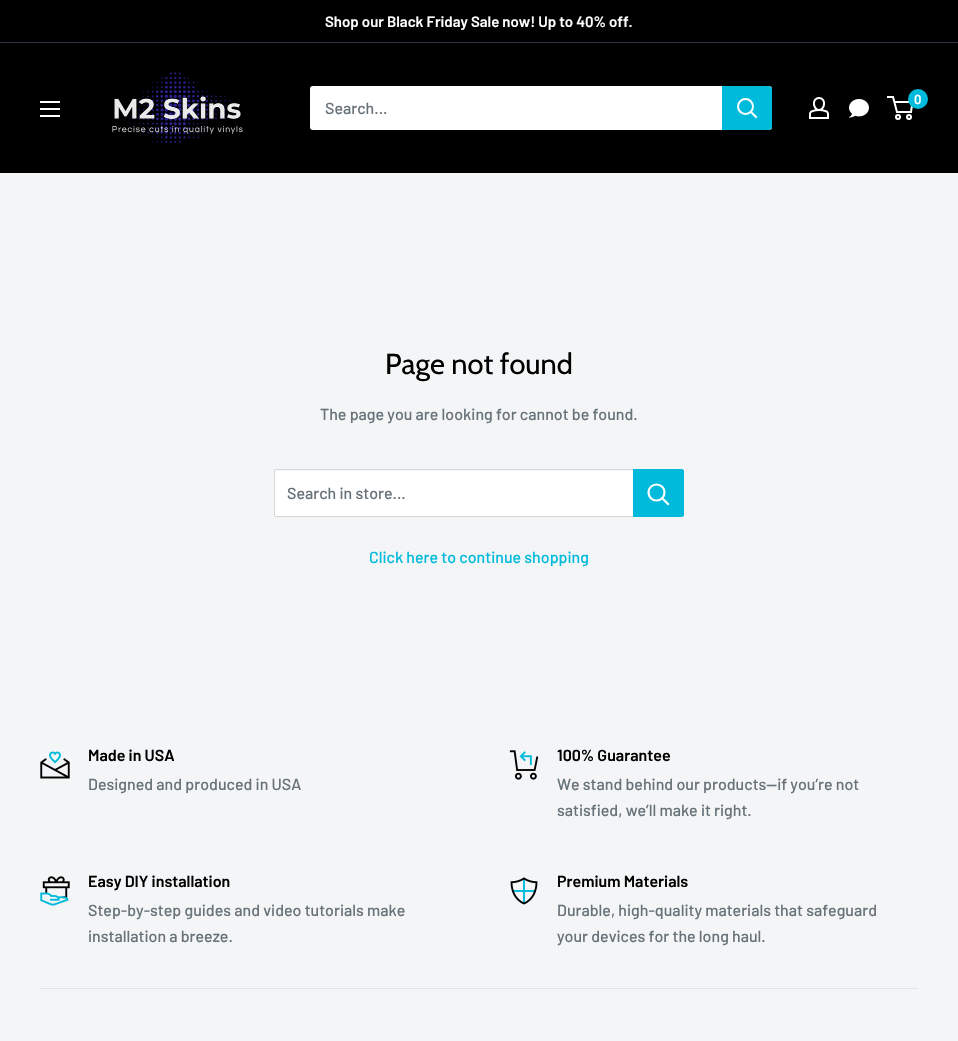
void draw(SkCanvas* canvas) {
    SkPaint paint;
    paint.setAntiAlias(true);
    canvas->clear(0xFFF3F5F6);
    paint.setColor(0xFF000000);
    canvas->drawRect(SkRect::MakeXYWH(0, 0, 958, 42), paint);
    paint.setColor(0xFF313548);
    canvas->drawRect(SkRect::MakeXYWH(0, 42, 958, 1), paint);
    SkFont font1(fontMgr->matchFamilyStyle("Barlow", SkFontStyle(600, SkFontStyle::kNormal_Width, SkFontStyle::kUpright_Slant)), 15);
    font1.setSubpixel(true);
    paint.setColor(0xFFFFFFFF);
    canvas->drawString("Shop our Black Friday Sale now! Up to 40% off.", 325, 27, font1, paint);
    paint.setColor(0xFF000000);
    canvas->drawRect(SkRect::MakeXYWH(0, 43, 958, 130), paint);
    canvas->drawImageRect(SkImages::DeferredFromEncodedData(SkData::MakeFromFileName("img1.png")), SkRect::MakeXYWH(112, 72, 131, 72), SkSamplingOptions());
    canvas->drawImageRect(SkImages::DeferredFromEncodedData(SkData::MakeFromFileName("img2.png")), SkRect::MakeXYWH(809, 97, 20, 22), SkSamplingOptions());
    canvas->drawImageRect(SkImages::DeferredFromEncodedData(SkData::MakeFromFileName("img3.png")), SkRect::MakeXYWH(849, 99, 20, 19), SkSamplingOptions());
    paint.setStyle(SkPaint::kStroke_Style);
    paint.setStrokeWidth(2);
    paint.setColor(0xFFFFFFFF);
    canvas->drawCircle(898, 117, 2, paint);
    canvas->drawCircle(909, 117, 2, paint);
    canvas->drawPath(SkPathBuilder().moveTo(894.5f, 102).lineTo(912.5f, 102).lineTo(911, 112).lineTo(897, 112).lineTo(893, 97).lineTo(887, 97).detach(), paint);
    paint.setStyle(SkPaint::kFill_Style);
    paint.setColor(0xFF00BADB);
    canvas->drawCircle(918, 99, 10, paint);
    SkFont font2(fontMgr->matchFamilyStyle("Barlow", SkFontStyle(600, SkFontStyle::kNormal_Width, SkFontStyle::kUpright_Slant)), 13);
    font2.setSubpixel(true);
    paint.setColor(0xFFFFFFFF);
    canvas->drawString("0", 914, 104, font2, paint);
    canvas->drawImageRect(SkImages::DeferredFromEncodedData(SkData::MakeFromFileName("img4.png")), SkRect::MakeXYWH(40, 101, 20, 16), SkSamplingOptions());
    canvas->drawRoundRect(SkRect::MakeXYWH(310, 86, 462, 44), 3, 3, paint);
    SkFont font3(fontMgr->matchFamilyStyle("Barlow", SkFontStyle(500, SkFontStyle::kNormal_Width, SkFontStyle::kUpright_Slant)), 16);
    font3.setSubpixel(true);
    paint.setColor(0xFF677279);
    canvas->drawString("Search...", 325, 114, font3, paint);
    paint.setColor(0xFF00BADB);
    canvas->drawPath(SkPathBuilder().moveTo(722, 86).lineTo(769, 86).cubicTo(770.5f, 86, 772, 87.5f, 772, 89).lineTo(772, 127).cubicTo(772, 128.5f, 770.5f, 130, 769, 130).lineTo(722, 130).close().detach(), paint);
    paint.setStyle(SkPaint::kStroke_Style);
    paint.setStrokeCap(SkPaint::kSquare_Cap);
    paint.setColor(0xFFFFFFFF);
    canvas->drawPath(SkPathBuilder().moveTo(756, 117).lineTo(751, 112).detach(), paint);
    paint.setStrokeCap(SkPaint::kButt_Cap);
    canvas->drawCircle(745.5f, 106.5f, 7.5f, paint);
    SkFont font4(fontMgr->matchFamilyStyle("Cabin", SkFontStyle::Normal()), 29);
    font4.setSubpixel(true);
    paint.setStyle(SkPaint::kFill_Style);
    paint.setColor(0xFF000000);
    canvas->drawString("Page not found", 385, 374, font4, paint);
    paint.setColor(0xFF677279);
    canvas->drawString("The page you are looking for cannot be found.", 320, 420, font3, paint);
    paint.setColor(0xFFFFFFFF);
    canvas->drawPath(SkPathBuilder().moveTo(276, 469).lineTo(633, 469).lineTo(633, 517).lineTo(276, 517).cubicTo(275, 517, 274, 516, 274, 515).lineTo(274, 471).cubicTo(274, 470, 275, 469, 276, 469).close().detach(), paint);
    paint.setColor(0xFFF8F8F8);
    canvas->drawPath(SkPathBuilder().moveTo(276, 471).lineTo(633, 471).lineTo(633, 470).lineTo(276, 470).cubicTo(275, 470, 275, 471, 275, 472).cubicTo(275, 471, 275, 471, 276, 471).close().detach(), paint);
    paint.setColor(0xFFD4D6D8);
    canvas->drawRect(SkRect::MakeXYWH(275, 469, 358, 1), paint);
    canvas->drawRect(SkRect::MakeXYWH(275, 516, 358, 1), paint);
    canvas->drawRect(SkRect::MakeXYWH(274, 470, 1, 46), paint);
    paint.setColor(0xFF677279);
    canvas->drawString("Search in store...", 287, 499, font3, paint);
    paint.setColor(0xFF00BADB);
    canvas->drawPath(SkPathBuilder().moveTo(633, 469).lineTo(682, 469).cubicTo(683, 469, 684, 470, 684, 471).lineTo(684, 515).cubicTo(684, 516, 683, 517, 682, 517).lineTo(633, 517).close().detach(), paint);
    paint.setStyle(SkPaint::kStroke_Style);
    paint.setStrokeWidth(2.2f);
    paint.setStrokeCap(SkPaint::kSquare_Cap);
    paint.setColor(0xFFFFFFFF);
    canvas->drawPath(SkPathBuilder().moveTo(668, 504).lineTo(662.5f, 498.5f).detach(), paint);
    paint.setStrokeCap(SkPaint::kButt_Cap);
    canvas->drawCircle(656.5f, 492.5f, 8, paint);
    paint.setStyle(SkPaint::kFill_Style);
    paint.setColor(0xFF00BADB);
    canvas->drawString("Click here to continue shopping", 369, 563, font3, paint);
    canvas->drawImageRect(SkImages::DeferredFromEncodedData(SkData::MakeFromFileName("img5.png")), SkRect::MakeXYWH(40, 751, 30, 28), SkSamplingOptions());
    SkFont font5(fontMgr->matchFamilyStyle("Barlow", SkFontStyle(600, SkFontStyle::kNormal_Width, SkFontStyle::kUpright_Slant)), 16);
    font5.setSubpixel(true);
    paint.setColor(0xFF000000);
    canvas->drawString("Made in USA", 88, 761, font5, paint);
    paint.setColor(0xFF677279);
    canvas->drawString("Designed and produced in USA", 88, 790, font3, paint);
    canvas->drawImageRect(SkImages::DeferredFromEncodedData(SkData::MakeFromFileName("img6.png")), SkRect::MakeXYWH(509, 750, 30, 30), SkSamplingOptions());
    paint.setColor(0xFF000000);
    canvas->drawString("100% Guarantee", 557, 761, font5, paint);
    paint.setColor(0xFF677279);
    canvas->drawString("We stand behind our products—if you’re not", 557, 790, font3, paint);
    canvas->drawString("satisfied, we’ll make it right.", 557, 816, font3, paint);
    canvas->drawImageRect(SkImages::DeferredFromEncodedData(SkData::MakeFromFileName("img7.png")), SkRect::MakeXYWH(40, 876, 30, 30), SkSamplingOptions());
    paint.setColor(0xFF000000);
    canvas->drawString("Easy DIY installation", 88, 887, font5, paint);
    paint.setColor(0xFF677279);
    canvas->drawString("Step-by-step guides and video tutorials make", 88, 916, font3, paint);
    canvas->drawString("installation a breeze.", 88, 942, font3, paint);
    canvas->drawImageRect(SkImages::DeferredFromEncodedData(SkData::MakeFromFileName("img8.png")), SkRect::MakeXYWH(510, 877, 28, 28), SkSamplingOptions());
    paint.setColor(0xFF000000);
    canvas->drawString("Premium Materials", 557, 887, font5, paint);
    paint.setColor(0xFF677279);
    canvas->drawString("Durable, high-quality materials that safeguard", 557, 916, font3, paint);
    canvas->drawString("your devices for the long haul.", 557, 942, font3, paint);
    paint.setColor(0xFFE1E3E4);
    canvas->drawRect(SkRect::MakeXYWH(40, 988, 878, 1), paint);
}
